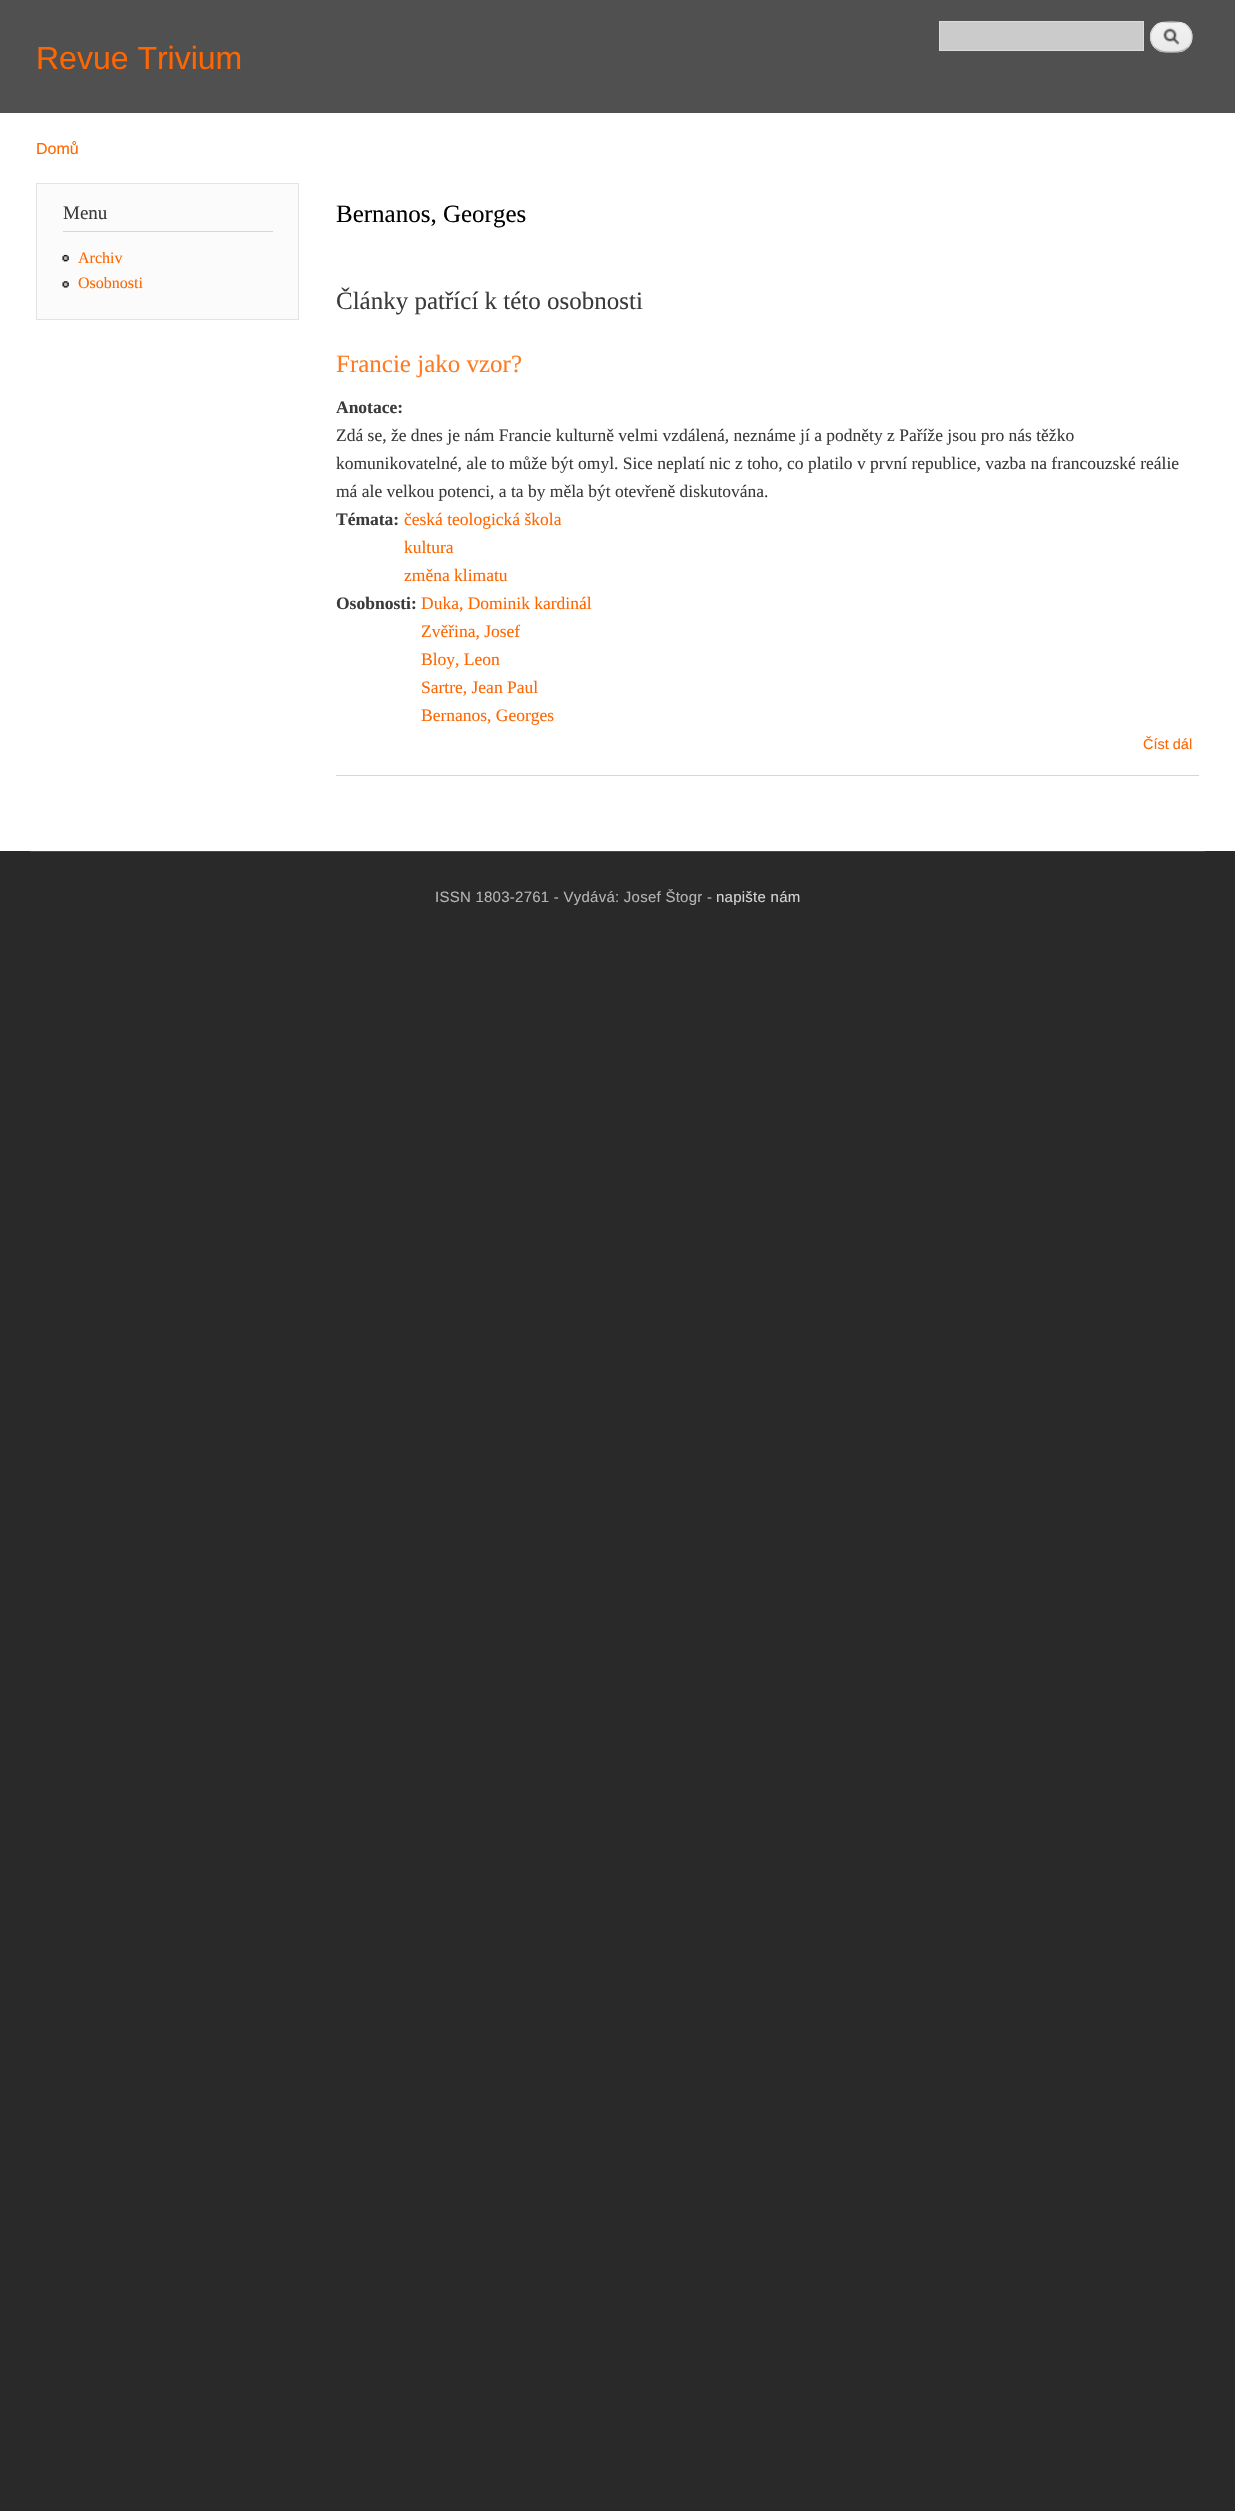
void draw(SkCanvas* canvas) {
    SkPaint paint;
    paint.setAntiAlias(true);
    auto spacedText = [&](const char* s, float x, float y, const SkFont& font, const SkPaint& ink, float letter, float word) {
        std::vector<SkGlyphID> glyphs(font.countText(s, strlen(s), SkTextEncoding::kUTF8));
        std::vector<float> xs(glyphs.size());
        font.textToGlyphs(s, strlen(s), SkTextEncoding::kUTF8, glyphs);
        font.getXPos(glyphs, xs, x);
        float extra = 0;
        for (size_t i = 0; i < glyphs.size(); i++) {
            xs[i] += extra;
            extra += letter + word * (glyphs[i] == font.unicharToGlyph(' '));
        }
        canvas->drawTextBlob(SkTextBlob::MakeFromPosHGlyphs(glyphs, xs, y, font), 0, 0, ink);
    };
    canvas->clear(0xFF292929);
    paint.setColor(0xFFFFFFFF);
    canvas->drawRect(SkRect::MakeXYWH(0, 113, 1235, 738), paint);
    paint.setColor(0xFF505050);
    canvas->drawRect(SkRect::MakeXYWH(0, 0, 1235, 113), paint);
    paint.setColor(0xFFCBCBCB);
    canvas->drawRect(SkRect::MakeXYWH(939.5f, 21.5f, 204, 29), paint);
    paint.setStyle(SkPaint::kStroke_Style);
    paint.setStrokeWidth(1);
    paint.setColor(0xFFDBDBDB);
    canvas->drawRect(SkRect::MakeXYWH(939.5f, 21.5f, 204, 29), paint);
    canvas->drawImageRect(SkImages::DeferredFromEncodedData(SkData::MakeFromFileName("img1.png")), SkRect::MakeXYWH(1150, 22, 43, 31), SkSamplingOptions());
    paint.setStrokeWidth(1.2f);
    paint.setColor(0xFFE4E4E4);
    canvas->drawPath(SkPathBuilder().moveTo(1155, 26.5f).cubicTo(1159.5f, 21.5f, 1165, 22, 1171, 22).cubicTo(1177.5f, 22, 1183, 21.5f, 1187.5f, 26.5f).detach(), paint);
    paint.setColor(0xFFD2D2D2);
    canvas->drawPath(SkPathBuilder().moveTo(1187.5f, 26.5f).cubicTo(1193.5f, 32, 1193.5f, 41.5f, 1187.5f, 47.5f).detach(), paint);
    paint.setColor(0xFFB4B4B4);
    canvas->drawPath(SkPathBuilder().moveTo(1187.5f, 47.5f).cubicTo(1183, 52, 1177.5f, 52, 1171, 52).cubicTo(1165, 52, 1159.5f, 52, 1155, 47.5f).detach(), paint);
    paint.setColor(0xFFD2D2D2);
    canvas->drawPath(SkPathBuilder().moveTo(1155, 47.5f).cubicTo(1149, 41.5f, 1149, 32, 1155, 26.5f).detach(), paint);
    SkFont font1(fontMgr->matchFamilyStyle("Liberation Sans", SkFontStyle::Normal()), 32);
    font1.setSubpixel(true);
    paint.setStyle(SkPaint::kFill_Style);
    paint.setColor(0xFFFF6600);
    canvas->drawString("Revue Trivium", 36, 69, font1, paint);
    SkFont font2(fontMgr->matchFamilyStyle("Liberation Sans", SkFontStyle::Normal()), 16);
    font2.setSubpixel(true);
    canvas->drawString("Domů", 36, 154, font2, paint);
    paint.setColor(0xFFFBFBFB);
    canvas->drawRect(SkRect::MakeXYWH(36.5f, 183.5f, 262, 136), paint);
    paint.setStyle(SkPaint::kStroke_Style);
    paint.setStrokeWidth(1);
    paint.setColor(0xFFE4E3E3);
    canvas->drawRect(SkRect::MakeXYWH(36.5f, 183.5f, 262, 136), paint);
    paint.setStyle(SkPaint::kFill_Style);
    paint.setColor(0xFFD6D6D6);
    canvas->drawRect(SkRect::MakeXYWH(63, 231, 210, 1), paint);
    SkFont font3(fontMgr->matchFamilyStyle("Liberation Serif", SkFontStyle::Normal()), 19);
    font3.setSubpixel(true);
    paint.setColor(0xFF3B3B3B);
    canvas->drawString("Menu", 63, 219, font3, paint);
    canvas->drawImageRect(SkImages::DeferredFromEncodedData(SkData::MakeFromFileName("img2.png")), SkRect::MakeXYWH(62, 254, 7, 8), SkSamplingOptions());
    SkFont font4(fontMgr->matchFamilyStyle("Liberation Serif", SkFontStyle::Normal()), 16);
    font4.setSubpixel(true);
    paint.setColor(0xFFFF6600);
    canvas->drawString("Archiv", 78, 263, font4, paint);
    canvas->drawImageRect(SkImages::DeferredFromEncodedData(SkData::MakeFromFileName("img3.png")), SkRect::MakeXYWH(62, 281, 7, 7), SkSamplingOptions());
    canvas->drawString("Osobnosti", 78, 288, font4, paint);
    SkFont font5(fontMgr->matchFamilyStyle("Liberation Serif", SkFontStyle::Normal()), 25);
    font5.setSubpixel(true);
    paint.setColor(0xFF000000);
    canvas->drawString("Bernanos, Georges", 336, 222, font5, paint);
    paint.setColor(0xFF3B3B3B);
    canvas->drawString("Články patřící k této osobnosti", 336, 309, font5, paint);
    paint.setColor(0xFFD3D7D9);
    canvas->drawRect(SkRect::MakeXYWH(336, 775, 863, 1), paint);
    paint.setColor(0xFFFF7A21);
    canvas->drawString("Francie jako vzor?", 336, 372, font5, paint);
    SkFont font6(fontMgr->matchFamilyStyle("Liberation Serif", SkFontStyle::Bold()), 17.5f);
    font6.setSubpixel(true);
    paint.setColor(0xFF3B3B3B);
    canvas->drawString("Anotace:", 336, 413, font6, paint);
    SkFont font7(fontMgr->matchFamilyStyle("Liberation Serif", SkFontStyle::Normal()), 17.5f);
    font7.setSubpixel(true);
    canvas->drawString("Zdá se, že dnes je nám Francie kulturně velmi vzdálená, neznáme jí a podněty z Paříže jsou pro nás těžko", 336, 441, font7, paint);
    canvas->drawString("komunikovatelné, ale to může být omyl. Sice neplatí nic z toho, co platilo v první republice, vazba na francouzské reálie", 336, 469, font7, paint);
    canvas->drawString("má ale velkou potenci, a ta by měla být otevřeně diskutována.", 336, 497, font7, paint);
    canvas->drawString("Témata:", 336, 525, font6, paint);
    paint.setColor(0xFFFF6600);
    canvas->drawString("česká teologická škola", 404, 525, font7, paint);
    canvas->drawString("kultura", 404, 553, font7, paint);
    canvas->drawString("změna klimatu", 404, 581, font7, paint);
    paint.setColor(0xFF3B3B3B);
    canvas->drawString("Osobnosti:", 336, 609, font6, paint);
    paint.setColor(0xFFFF6600);
    canvas->drawString("Duka, Dominik kardinál", 421, 609, font7, paint);
    canvas->drawString("Zvěřina, Josef", 421, 637, font7, paint);
    canvas->drawString("Bloy, Leon", 421, 665, font7, paint);
    canvas->drawString("Sartre, Jean Paul", 421, 693, font7, paint);
    canvas->drawString("Bernanos, Georges", 421, 721, font7, paint);
    SkFont font8(fontMgr->matchFamilyStyle("Liberation Sans", SkFontStyle::Normal()), 14.5f);
    font8.setSubpixel(true);
    canvas->drawString("Číst dál", 1143, 749, font8, paint);
    paint.setColor(0xFF494949);
    canvas->drawRect(SkRect::MakeXYWH(30, 851, 1175, 1), paint);
    SkFont font9(fontMgr->matchFamilyStyle("Liberation Sans", SkFontStyle::Normal()), 15);
    font9.setSubpixel(true);
    paint.setColor(0xFFB4B4B4);
    spacedText("ISSN 1803-2761 - Vydává: Josef Štogr -", 435, 902, font9, paint, 0.25f, 0);
    paint.setColor(0xFFD4D4D4);
    spacedText("napište nám", 716, 902, font9, paint, 0.25f, 0);
}
